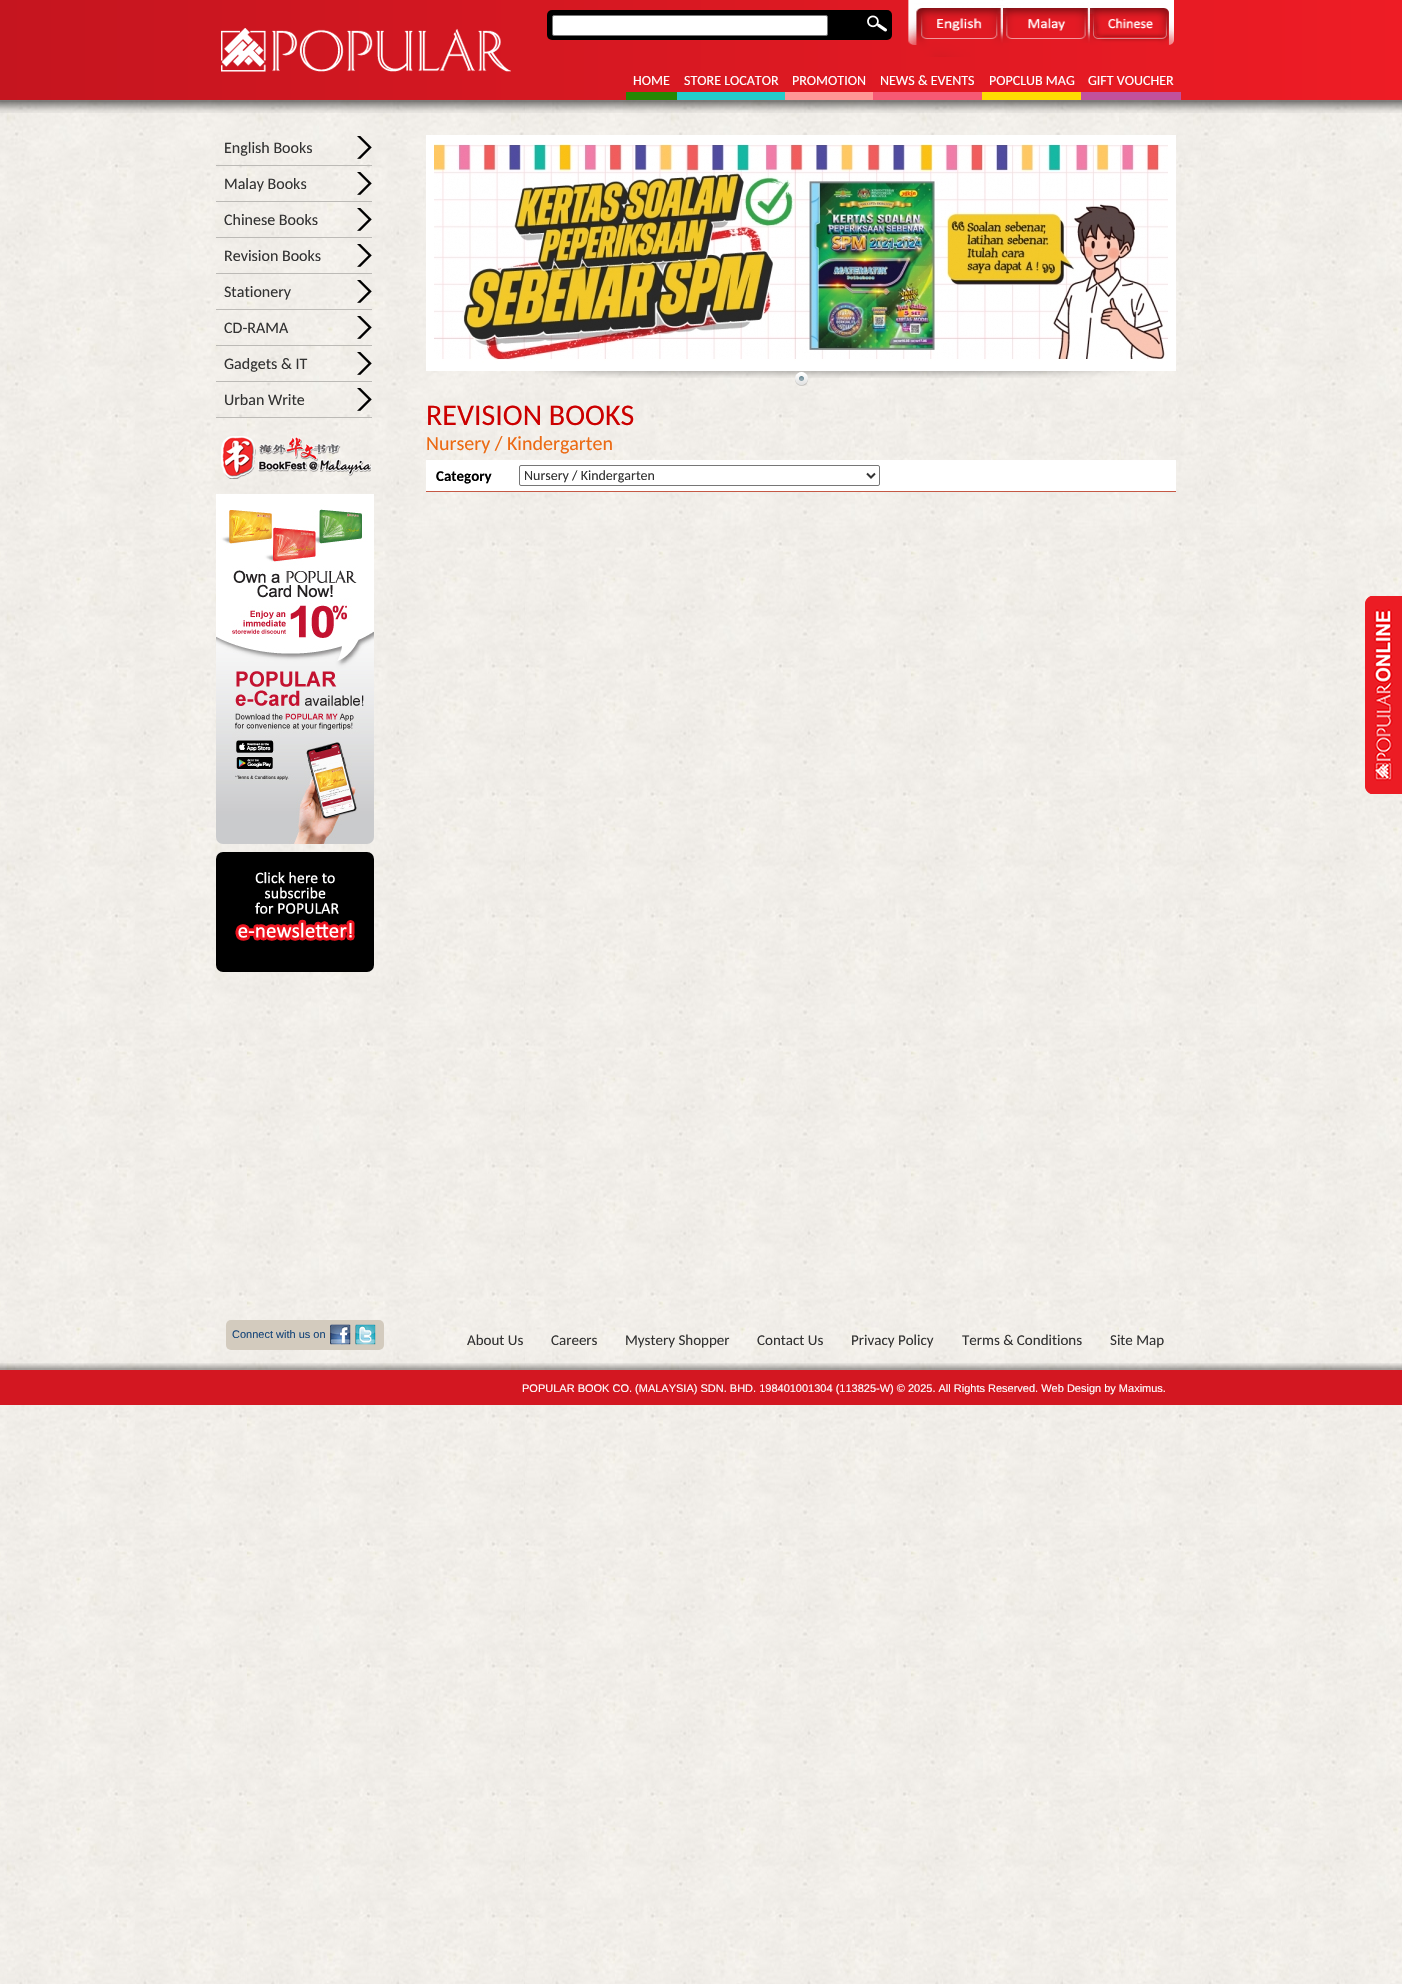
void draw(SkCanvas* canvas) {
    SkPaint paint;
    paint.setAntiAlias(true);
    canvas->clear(0xFFFFFFFF);
    canvas->drawImageRect(SkImages::DeferredFromEncodedData(SkData::MakeFromFileName("img1.png")), SkRect::MakeXYWH(0, 100, 1402, 1884), SkSamplingOptions());
    {
        const SkColor colors[] = {0xFFC5151F, 0xFFEE1C25};
        const float stops[] = {0, 1};
        const SkPoint ends[] = {{0, 50}, {1402, 50}};
        paint.setShader(SkGradientShader::MakeLinear(ends, colors, stops, 2, SkTileMode::kClamp));
        paint.setAlpha(255);
    }
    canvas->drawRect(SkRect::MakeXYWH(0, 0, 1402, 100), paint);
    canvas->drawImageRect(SkImages::DeferredFromEncodedData(SkData::MakeFromFileName("img2.png")), SkRect::MakeXYWH(221, 28, 290, 44), SkSamplingOptions());
    paint.setShader(nullptr);
    paint.setColor(0xFF000000);
    canvas->drawRoundRect(SkRect::MakeXYWH(547, 10, 345, 30), 5, 5, paint);
    paint.setColor(0xFFFFFFFF);
    canvas->drawRoundRect(SkRect::MakeXYWH(552.5f, 15.5f, 275, 20), 1.5f, 1.5f, paint);
    paint.setStyle(SkPaint::kStroke_Style);
    paint.setStrokeWidth(1);
    paint.setColor(0xFF767676);
    canvas->drawRoundRect(SkRect::MakeXYWH(552.5f, 15.5f, 275, 20), 1.5f, 1.5f, paint);
    canvas->drawImageRect(SkImages::DeferredFromEncodedData(SkData::MakeFromFileName("img3.png")), SkRect::MakeXYWH(867, 15, 20, 17), SkSamplingOptions());
    canvas->drawImageRect(SkImages::DeferredFromEncodedData(SkData::MakeFromFileName("img4.png")), SkRect::MakeXYWH(908, 0, 95, 57), SkSamplingOptions());
    canvas->drawImageRect(SkImages::DeferredFromEncodedData(SkData::MakeFromFileName("img5.png")), SkRect::MakeXYWH(1003, 0, 87, 43), SkSamplingOptions());
    canvas->drawImageRect(SkImages::DeferredFromEncodedData(SkData::MakeFromFileName("img6.png")), SkRect::MakeXYWH(1090, 0, 84, 45), SkSamplingOptions());
    paint.setStyle(SkPaint::kFill_Style);
    paint.setColor(0xFF248704);
    canvas->drawRect(SkRect::MakeXYWH(626, 92, 51, 8), paint);
    SkFont font1(fontMgr->matchFamilyStyle("Carlito", SkFontStyle::Normal()), 14);
    font1.setSubpixel(true);
    paint.setColor(0xFFFFFFFF);
    canvas->drawString("HOME", 633, 85, font1, paint);
    paint.setColor(0xFF23CDCA);
    canvas->drawRect(SkRect::MakeXYWH(677, 92, 108, 8), paint);
    paint.setColor(0xFFFFFFFF);
    canvas->drawString("STORE LOCATOR", 684, 85, font1, paint);
    paint.setColor(0xFFFF9796);
    canvas->drawRect(SkRect::MakeXYWH(785, 92, 88, 8), paint);
    paint.setColor(0xFFFFFFFF);
    canvas->drawString("PROMOTION", 792, 85, font1, paint);
    paint.setColor(0xFFF65974);
    canvas->drawRect(SkRect::MakeXYWH(873, 92, 109, 8), paint);
    paint.setColor(0xFFFFFFFF);
    canvas->drawString("NEWS & EVENTS", 880, 85, font1, paint);
    paint.setColor(0xFFFFDD02);
    canvas->drawRect(SkRect::MakeXYWH(982, 92, 99, 8), paint);
    paint.setColor(0xFFFFFFFF);
    canvas->drawString("POPCLUB MAG", 989, 85, font1, paint);
    paint.setColor(0xFFC1519D);
    canvas->drawRect(SkRect::MakeXYWH(1081, 92, 100, 8), paint);
    paint.setColor(0xFFFFFFFF);
    canvas->drawString("GIFT VOUCHER", 1088, 85, font1, paint);
    canvas->drawImageRect(SkImages::DeferredFromEncodedData(SkData::MakeFromFileName("img7.png")), SkRect::MakeXYWH(1365, 596, 37, 198), SkSamplingOptions());
    canvas->drawImageRect(SkImages::DeferredFromEncodedData(SkData::MakeFromFileName("img8.png")), SkRect::MakeXYWH(0, 100, 1402, 13), SkSamplingOptions());
    canvas->drawImageRect(SkImages::DeferredFromEncodedData(SkData::MakeFromFileName("img9.png")), SkRect::MakeXYWH(357, 136, 15, 23), SkSamplingOptions());
    paint.setColor(0xFFBCBAB6);
    canvas->drawRect(SkRect::MakeXYWH(216, 165, 156, 1), paint);
    SkFont font2(fontMgr->matchFamilyStyle("Carlito", SkFontStyle::Normal()), 16);
    font2.setSubpixel(true);
    paint.setColor(0xFF333333);
    canvas->drawString("English Books", 224, 153, font2, paint);
    canvas->drawImageRect(SkImages::DeferredFromEncodedData(SkData::MakeFromFileName("img10.png")), SkRect::MakeXYWH(357, 172, 15, 23), SkSamplingOptions());
    paint.setColor(0xFFBCBAB6);
    canvas->drawRect(SkRect::MakeXYWH(216, 201, 156, 1), paint);
    paint.setColor(0xFF333333);
    canvas->drawString("Malay Books", 224, 189, font2, paint);
    canvas->drawImageRect(SkImages::DeferredFromEncodedData(SkData::MakeFromFileName("img11.png")), SkRect::MakeXYWH(357, 208, 15, 23), SkSamplingOptions());
    paint.setColor(0xFFBCBAB6);
    canvas->drawRect(SkRect::MakeXYWH(216, 237, 156, 1), paint);
    paint.setColor(0xFF333333);
    canvas->drawString("Chinese Books", 224, 225, font2, paint);
    canvas->drawImageRect(SkImages::DeferredFromEncodedData(SkData::MakeFromFileName("img12.png")), SkRect::MakeXYWH(357, 244, 15, 23), SkSamplingOptions());
    paint.setColor(0xFFBCBAB6);
    canvas->drawRect(SkRect::MakeXYWH(216, 273, 156, 1), paint);
    paint.setColor(0xFF333333);
    canvas->drawString("Revision Books", 224, 261, font2, paint);
    canvas->drawImageRect(SkImages::DeferredFromEncodedData(SkData::MakeFromFileName("img13.png")), SkRect::MakeXYWH(357, 280, 15, 23), SkSamplingOptions());
    paint.setColor(0xFFBCBAB6);
    canvas->drawRect(SkRect::MakeXYWH(216, 309, 156, 1), paint);
    paint.setColor(0xFF333333);
    canvas->drawString("Stationery", 224, 297, font2, paint);
    canvas->drawImageRect(SkImages::DeferredFromEncodedData(SkData::MakeFromFileName("img14.png")), SkRect::MakeXYWH(357, 316, 15, 23), SkSamplingOptions());
    paint.setColor(0xFFBCBAB6);
    canvas->drawRect(SkRect::MakeXYWH(216, 345, 156, 1), paint);
    paint.setColor(0xFF333333);
    canvas->drawString("CD-RAMA", 224, 333, font2, paint);
    canvas->drawImageRect(SkImages::DeferredFromEncodedData(SkData::MakeFromFileName("img15.png")), SkRect::MakeXYWH(357, 352, 15, 23), SkSamplingOptions());
    paint.setColor(0xFFBCBAB6);
    canvas->drawRect(SkRect::MakeXYWH(216, 381, 156, 1), paint);
    paint.setColor(0xFF333333);
    canvas->drawString("Gadgets & IT", 224, 369, font2, paint);
    canvas->drawImageRect(SkImages::DeferredFromEncodedData(SkData::MakeFromFileName("img16.png")), SkRect::MakeXYWH(357, 388, 15, 23), SkSamplingOptions());
    paint.setColor(0xFFBCBAB6);
    canvas->drawRect(SkRect::MakeXYWH(216, 417, 156, 1), paint);
    paint.setColor(0xFF333333);
    canvas->drawString("Urban Write", 224, 405, font2, paint);
    canvas->drawImageRect(SkImages::DeferredFromEncodedData(SkData::MakeFromFileName("img17.png")), SkRect::MakeXYWH(221, 436, 151, 43), SkSamplingOptions());
    canvas->drawImageRect(SkImages::DeferredFromEncodedData(SkData::MakeFromFileName("img18.png")), SkRect::MakeXYWH(216, 494, 158, 350), SkSamplingOptions());
    paint.setColor(0xFF000000);
    canvas->drawRoundRect(SkRect::MakeXYWH(216, 852, 158, 120), 7, 7, paint);
    canvas->drawImageRect(SkImages::DeferredFromEncodedData(SkData::MakeFromFileName("img19.png")), SkRect::MakeXYWH(235, 872, 120, 69), SkSamplingOptions());
    canvas->drawImageRect(SkImages::DeferredFromEncodedData(SkData::MakeFromFileName("img20.png")), SkRect::MakeXYWH(535, 371, 601, 7), SkSamplingOptions());
    paint.setStyle(SkPaint::kStroke_Style);
    paint.setStrokeWidth(8);
    paint.setColor(0xFFFFFFFF);
    canvas->drawRect(SkRect::MakeXYWH(430, 139, 742, 228), paint);
    canvas->drawImageRect(SkImages::DeferredFromEncodedData(SkData::MakeFromFileName("img21.png")), SkRect::MakeXYWH(434, 143, 734, 220), SkSamplingOptions());
    canvas->drawImageRect(SkImages::DeferredFromEncodedData(SkData::MakeFromFileName("img22.png")), SkRect::MakeXYWH(795, 372, 13, 14), SkSamplingOptions());
    SkFont font3(fontMgr->matchFamilyStyle("Carlito", SkFontStyle::Normal()), 30);
    font3.setSubpixel(true);
    paint.setStyle(SkPaint::kFill_Style);
    paint.setColor(0xFFCC0000);
    canvas->drawString("REVISION BOOKS", 426, 425, font3, paint);
    SkFont font4(fontMgr->matchFamilyStyle("Carlito", SkFontStyle::Normal()), 20);
    font4.setSubpixel(true);
    paint.setColor(0xFFEC6A13);
    canvas->drawString("Nursery / Kindergarten", 426, 450, font4, paint);
    paint.setColor(0xFFFFFFFF);
    canvas->drawRect(SkRect::MakeXYWH(426, 460, 750, 31), paint);
    paint.setColor(0xFFC55844);
    canvas->drawRect(SkRect::MakeXYWH(426, 491, 750, 1), paint);
    SkFont font5(fontMgr->matchFamilyStyle("Carlito", SkFontStyle::Bold()), 15);
    font5.setSubpixel(true);
    paint.setColor(0xFF000000);
    canvas->drawString("Category", 436, 481, font5, paint);
    paint.setStyle(SkPaint::kStroke_Style);
    paint.setStrokeWidth(1);
    paint.setColor(0xFF767676);
    canvas->drawRoundRect(SkRect::MakeXYWH(519.5f, 465.5f, 360, 20), 1.5f, 1.5f, paint);
    paint.setStrokeWidth(2);
    paint.setColor(0xFF333333);
    canvas->drawPath(SkPathBuilder().moveTo(867, 473.5f).lineTo(871, 477.5f).lineTo(875, 473.5f).detach(), paint);
    paint.setStyle(SkPaint::kFill_Style);
    canvas->drawString("Nursery / Kindergarten", 524, 480, font1, paint);
    paint.setColor(0xFFD3CBBE);
    canvas->drawRoundRect(SkRect::MakeXYWH(226, 1320, 158, 30), 5, 5, paint);
    SkFont font6(fontMgr->matchFamilyStyle("Liberation Sans", SkFontStyle::Normal()), 11);
    font6.setSubpixel(true);
    paint.setColor(0xFF174679);
    canvas->drawString("Connect with us on", 232, 1338, font6, paint);
    canvas->drawImageRect(SkImages::DeferredFromEncodedData(SkData::MakeFromFileName("img23.png")), SkRect::MakeXYWH(330, 1324, 21, 21), SkSamplingOptions());
    canvas->drawImageRect(SkImages::DeferredFromEncodedData(SkData::MakeFromFileName("img24.png")), SkRect::MakeXYWH(355, 1324, 21, 21), SkSamplingOptions());
    SkFont font7(fontMgr->matchFamilyStyle("Carlito", SkFontStyle::Normal()), 15);
    font7.setSubpixel(true);
    paint.setColor(0xFF333333);
    canvas->drawString("About Us", 467, 1345, font7, paint);
    canvas->drawString("Careers", 551, 1345, font7, paint);
    canvas->drawString("Mystery Shopper", 625, 1345, font7, paint);
    canvas->drawString("Contact Us", 757, 1345, font7, paint);
    canvas->drawString("Privacy Policy", 851, 1345, font7, paint);
    canvas->drawString("Terms & Conditions", 962, 1345, font7, paint);
    canvas->drawString("Site Map", 1110, 1345, font7, paint);
    canvas->drawImageRect(SkImages::DeferredFromEncodedData(SkData::MakeFromFileName("img25.png")), SkRect::MakeXYWH(0, 1363, 1402, 42), SkSamplingOptions());
    paint.setColor(0xFFFFFFFF);
    canvas->drawString("POPULAR BOOK CO. (MALAYSIA) SDN. BHD. 198401001304 (113825-W) © 2025. All Rights Reserved. Web Design by Maximus.", 522, 1392, font6, paint);
}
